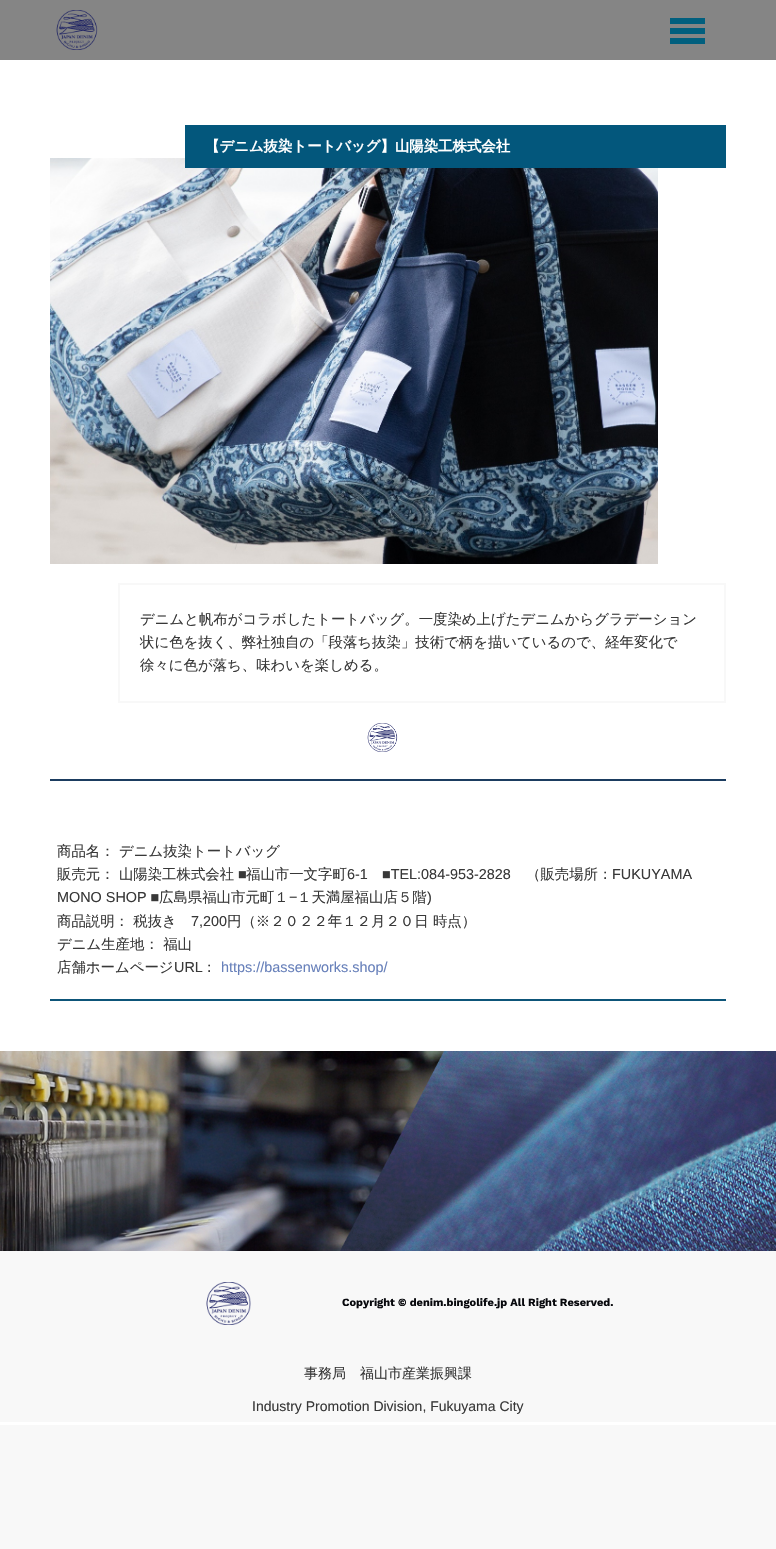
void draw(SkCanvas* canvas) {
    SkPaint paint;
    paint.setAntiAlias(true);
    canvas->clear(0xFFF8F8F8);
    paint.setColor(0xFFFFFFFF);
    canvas->drawRect(SkRect::MakeXYWH(0, 60, 776, 1365), paint);
    paint.setColor(0xFF858585);
    canvas->drawRect(SkRect::MakeXYWH(0, 0, 776, 60), paint);
    canvas->drawImageRect(SkImages::DeferredFromEncodedData(SkData::MakeFromFileName("img1.png")), SkRect::MakeXYWH(56, 10, 42, 40), SkSamplingOptions());
    paint.setColor(0xFF015F7E);
    canvas->drawRect(SkRect::MakeXYWH(670, 28, 35, 6), paint);
    canvas->drawRect(SkRect::MakeXYWH(670, 18, 35, 6), paint);
    canvas->drawRect(SkRect::MakeXYWH(670, 38, 35, 6), paint);
    canvas->drawImageRect(SkImages::DeferredFromEncodedData(SkData::MakeFromFileName("img2.png")), SkRect::MakeXYWH(50, 158, 608, 406), SkSamplingOptions());
    paint.setColor(0xFF03577C);
    canvas->drawRect(SkRect::MakeXYWH(185, 125, 541, 43), paint);
    SkFont font1(fontMgr->matchFamilyStyle("WenQuanYi Zen Hei", SkFontStyle::Bold()), 14.4f);
    font1.setSubpixel(true);
    paint.setColor(0xFFFFFFFF);
    canvas->drawString("【デニム抜染トートバッグ】山陽染工株式会社", 205, 151, font1, paint);
    paint.setStyle(SkPaint::kStroke_Style);
    paint.setStrokeWidth(2);
    paint.setColor(0xFFF8F8F8);
    canvas->drawRect(SkRect::MakeXYWH(119, 584, 606, 118), paint);
    SkFont font2(fontMgr->matchFamilyStyle("WenQuanYi Zen Hei", SkFontStyle(500, SkFontStyle::kNormal_Width, SkFontStyle::kUpright_Slant)), 14.4f);
    font2.setSubpixel(true);
    paint.setStyle(SkPaint::kFill_Style);
    paint.setColor(0xFF383838);
    canvas->drawString("デニムと帆布がコラボしたトートバッグ。一度染め上げたデニムからグラデーション", 140, 624, font2, paint);
    canvas->drawString("状に色を抜く、弊社独自の「段落ち抜染」技術で柄を描いているので、経年変化で", 140, 647, font2, paint);
    canvas->drawString("徐々に色が落ち、味わいを楽しめる。", 140, 670, font2, paint);
    canvas->drawImageRect(SkImages::DeferredFromEncodedData(SkData::MakeFromFileName("img3.png")), SkRect::MakeXYWH(367, 723, 31, 29), SkSamplingOptions());
    paint.setColor(0xFF1B3C60);
    canvas->drawRect(SkRect::MakeXYWH(50, 779, 676, 2), paint);
    paint.setColor(0xFF0D5579);
    canvas->drawRect(SkRect::MakeXYWH(50, 999, 676, 2), paint);
    paint.setColor(0xFF383838);
    canvas->drawString("商品名： デニム抜染トートバッグ", 57, 856, font2, paint);
    canvas->drawString("販売元： 山陽染工株式会社", 57, 879, font2, paint);
    SkFont font3(fontMgr->matchFamilyStyle("Liberation Sans", SkFontStyle::Normal()), 14.4f);
    font3.setSubpixel(true);
    canvas->drawString("■", 238, 879, font3, paint);
    canvas->drawString("福山市一文字町", 246, 879, font2, paint);
    canvas->drawString("6-1", 347, 879, font3, paint);
    canvas->drawString("■TEL:084-953-2828", 382, 879, font3, paint);
    canvas->drawString("（販売場所：", 526, 879, font2, paint);
    canvas->drawString("FUKUYAMA", 612, 879, font3, paint);
    canvas->drawString("MONO SHOP ■", 57, 902, font3, paint);
    canvas->drawString("広島県福山市元町１", 159, 902, font2, paint);
    canvas->drawString("−", 289, 902, font3, paint);
    canvas->drawString("１天満屋福山店５階", 297, 902, font2, paint);
    canvas->drawString(")", 427, 902, font3, paint);
    canvas->drawString("商品説明： 税抜き", 57, 926, font2, paint);
    canvas->drawString("7,200", 191, 926, font3, paint);
    canvas->drawString("円（※２０２２年１２月２０日 時点）", 227, 926, font2, paint);
    canvas->drawString("デニム生産地： 福山", 57, 949, font2, paint);
    canvas->drawString("店舗ホームページ", 57, 972, font2, paint);
    canvas->drawString("URL", 174, 972, font3, paint);
    canvas->drawString("：", 202, 972, font2, paint);
    paint.setColor(0xFF6780BA);
    canvas->drawString("https://bassenworks.shop/", 221, 972, font3, paint);
    canvas->drawImageRect(SkImages::DeferredFromEncodedData(SkData::MakeFromFileName("img4.png")), SkRect::MakeXYWH(0, 1051, 776, 200), SkSamplingOptions());
    paint.setColor(0xFFF8F8F8);
    canvas->drawRect(SkRect::MakeXYWH(0, 1251, 776, 171), paint);
    canvas->drawImageRect(SkImages::DeferredFromEncodedData(SkData::MakeFromFileName("img5.png")), SkRect::MakeXYWH(206, 1282, 45, 43), SkSamplingOptions());
    SkFont font4(fontMgr->matchFamilyStyle("Work Sans", SkFontStyle::Bold()), 11);
    font4.setSubpixel(true);
    paint.setColor(0xFF07080C);
    canvas->drawString("Copyright © denim.bingolife.jp All Right Reserved.", 342, 1306, font4, paint);
    SkFont font5(fontMgr->matchFamilyStyle("WenQuanYi Zen Hei", SkFontStyle(500, SkFontStyle::kNormal_Width, SkFontStyle::kUpright_Slant)), 14);
    font5.setSubpixel(true);
    paint.setColor(0xFF383838);
    canvas->drawString("事務局　福山市産業振興課", 304, 1378, font5, paint);
    SkFont font6(fontMgr->matchFamilyStyle("Liberation Sans", SkFontStyle::Normal()), 14);
    font6.setSubpixel(true);
    canvas->drawString("Industry Promotion Division, Fukuyama City", 252, 1411, font6, paint);
}
